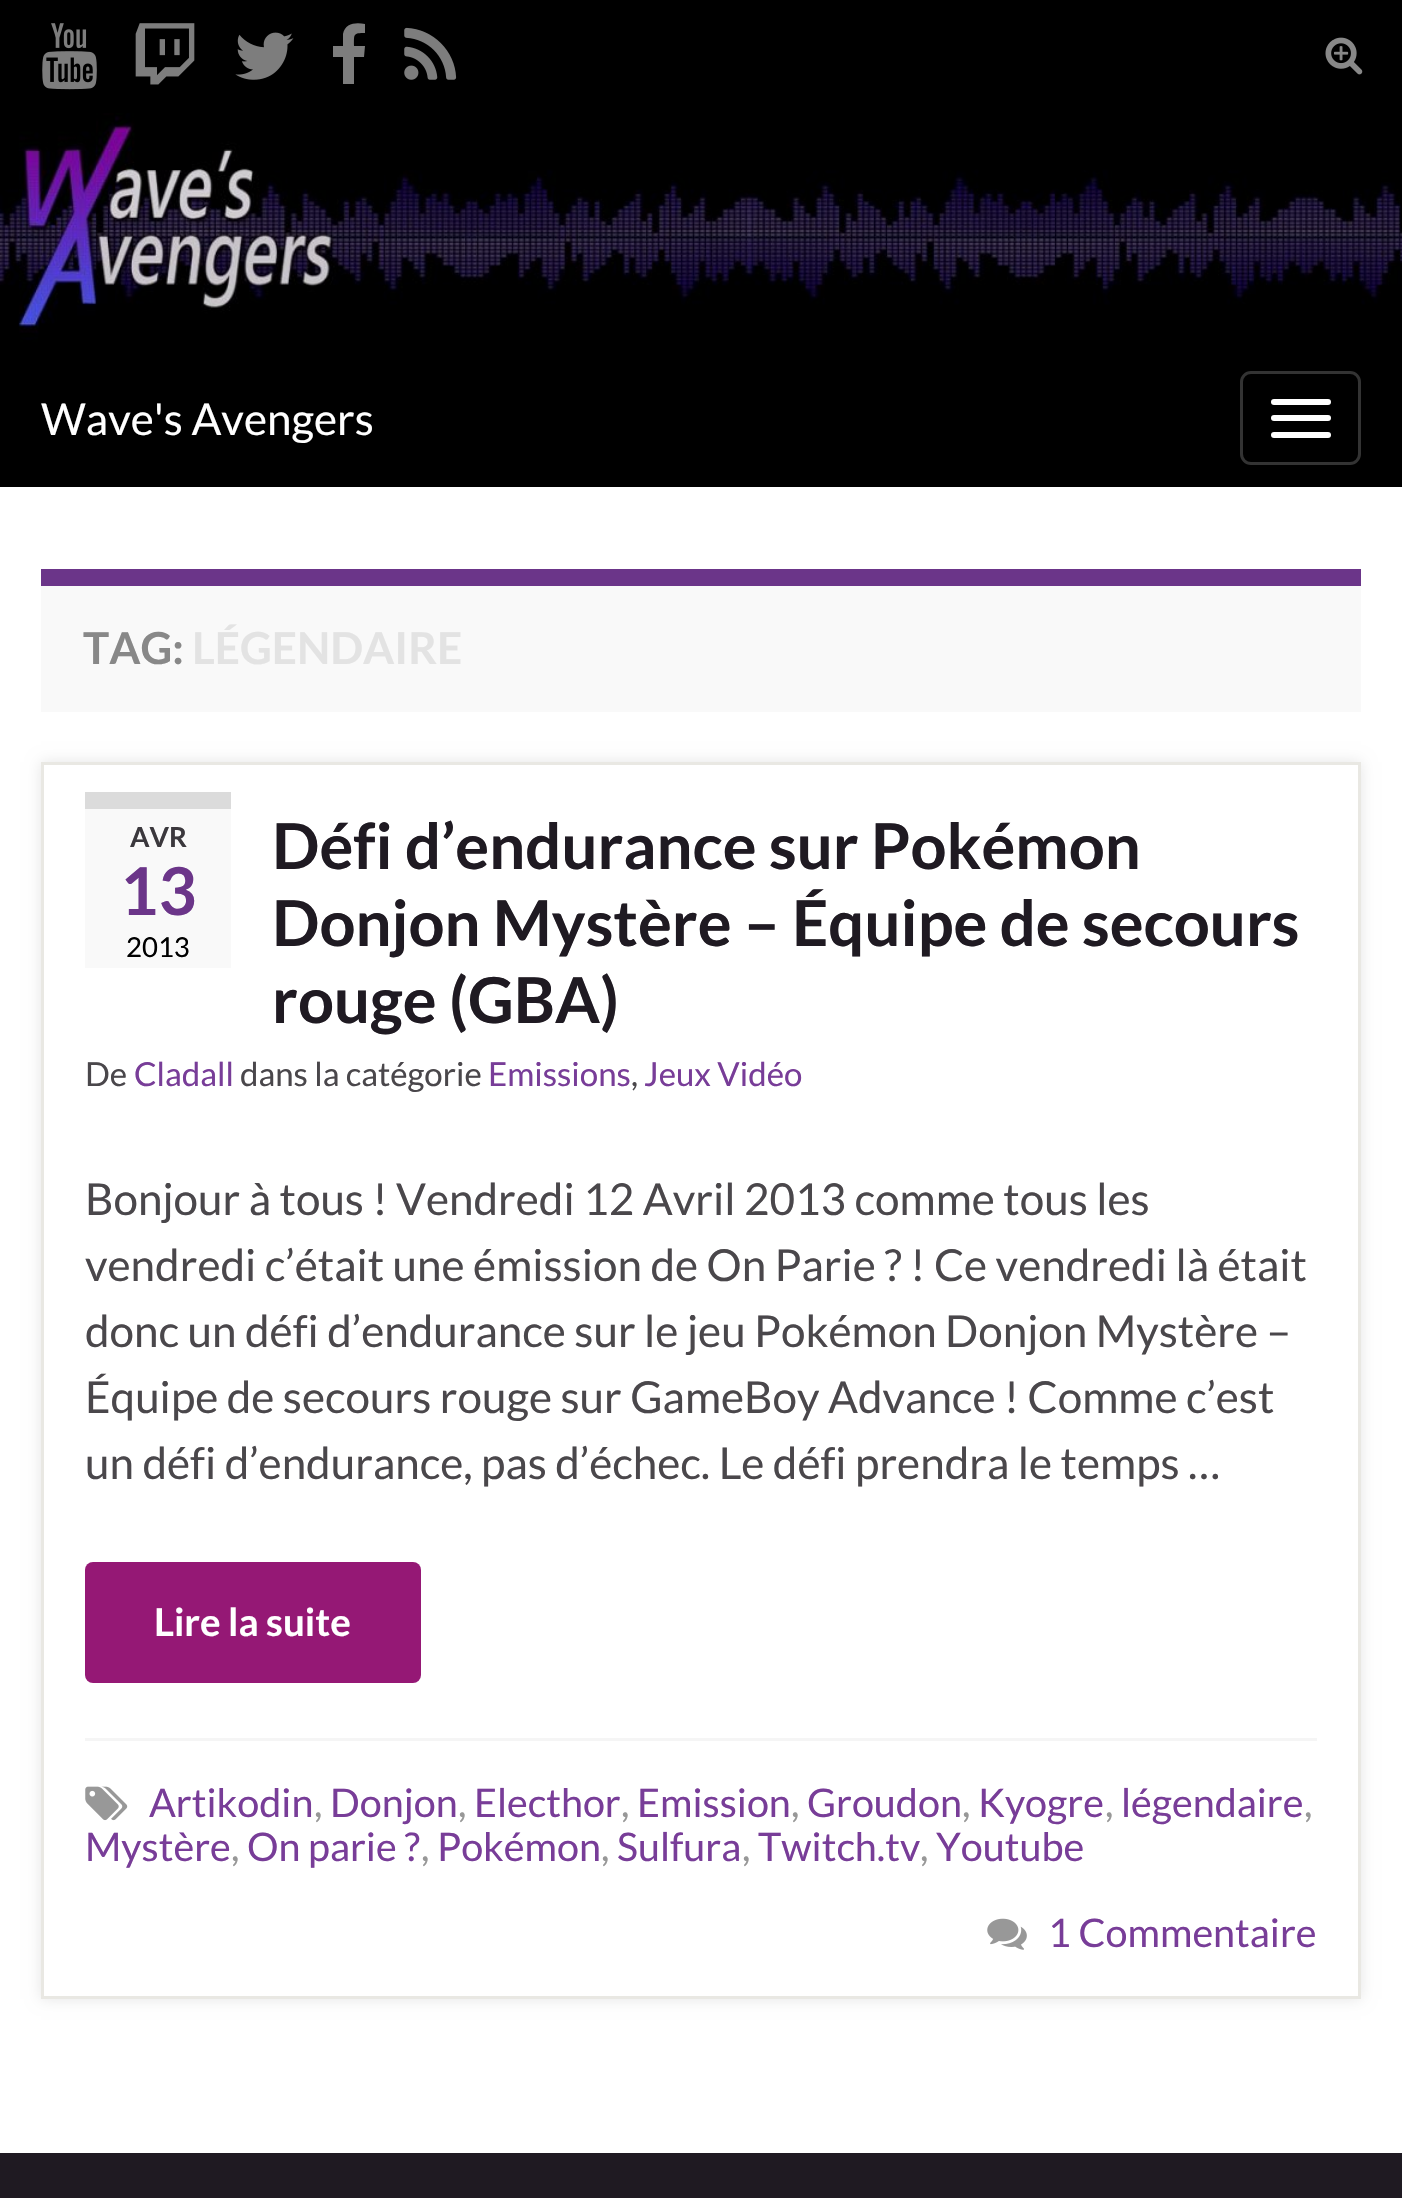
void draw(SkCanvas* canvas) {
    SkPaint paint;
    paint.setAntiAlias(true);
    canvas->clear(0xFFFFFFFF);
    paint.setColor(0xFF000000);
    canvas->drawRect(SkRect::MakeXYWH(0, 0, 1402, 113), paint);
    canvas->drawImageRect(SkImages::DeferredFromEncodedData(SkData::MakeFromFileName("img1.png")), SkRect::MakeXYWH(42, 23, 55, 67), SkSamplingOptions());
    canvas->drawImageRect(SkImages::DeferredFromEncodedData(SkData::MakeFromFileName("img2.png")), SkRect::MakeXYWH(135, 23, 60, 62), SkSamplingOptions());
    canvas->drawImageRect(SkImages::DeferredFromEncodedData(SkData::MakeFromFileName("img3.png")), SkRect::MakeXYWH(235, 32, 59, 48), SkSamplingOptions());
    paint.setColor(0xFF7D7D7D);
    canvas->drawPath(SkPathBuilder().moveTo(365, 24).lineTo(365, 33).cubicTo(353, 33, 354, 34, 354, 46).lineTo(365, 46).lineTo(364, 57).lineTo(354, 57).lineTo(354, 84).lineTo(343, 84).lineTo(343, 57).lineTo(333, 57).lineTo(333, 46).lineTo(343, 46).lineTo(343, 34).cubicTo(345, 23, 356, 22, 365, 24).close().detach(), paint);
    canvas->drawImageRect(SkImages::DeferredFromEncodedData(SkData::MakeFromFileName("img4.png")), SkRect::MakeXYWH(404, 27, 53, 53), SkSamplingOptions());
    canvas->drawImageRect(SkImages::DeferredFromEncodedData(SkData::MakeFromFileName("img5.png")), SkRect::MakeXYWH(1325, 37, 38, 38), SkSamplingOptions());
    canvas->drawImageRect(SkImages::DeferredFromEncodedData(SkData::MakeFromFileName("img6.png")), SkRect::MakeXYWH(0, 113, 1402, 236), SkSamplingOptions());
    paint.setColor(0xFF000000);
    canvas->drawRect(SkRect::MakeXYWH(0, 349, 1402, 138), paint);
    SkFont font1(fontMgr->matchFamilyStyle("Lato", SkFontStyle::Normal()), 44);
    font1.setSubpixel(true);
    paint.setColor(0xFFFFFFFF);
    canvas->drawString("Wave's Avengers", 41, 435, font1, paint);
    paint.setStyle(SkPaint::kStroke_Style);
    paint.setStrokeWidth(3);
    paint.setColor(0xFF333333);
    canvas->drawRoundRect(SkRect::MakeXYWH(1241.5f, 372.5f, 118, 91), 9.5f, 9.5f, paint);
    paint.setStyle(SkPaint::kFill_Style);
    paint.setColor(0xFFFFFFFF);
    canvas->drawRoundRect(SkRect::MakeXYWH(1271, 399, 60, 6), 3, 3, paint);
    canvas->drawRoundRect(SkRect::MakeXYWH(1271, 415, 60, 6), 3, 3, paint);
    canvas->drawRoundRect(SkRect::MakeXYWH(1271, 432, 60, 6), 3, 3, paint);
    paint.setColor(0xFFF9F9F9);
    canvas->drawRect(SkRect::MakeXYWH(41, 586, 1320, 126), paint);
    paint.setColor(0xFF6B3589);
    canvas->drawRect(SkRect::MakeXYWH(41, 569, 1320, 17), paint);
    SkFont font2(fontMgr->matchFamilyStyle("Lato", SkFontStyle::Bold()), 44);
    font2.setSubpixel(true);
    paint.setColor(0xFF888888);
    canvas->drawString("TAG:", 83, 664, font2, paint);
    paint.setColor(0xFFE3E3E3);
    canvas->drawString("LÉGENDAIRE", 192, 664, font2, paint);
    paint.setColor(0x1A000000);
    paint.setMaskFilter(SkMaskFilter::MakeBlur(kNormal_SkBlurStyle, 7));
    canvas->drawRect(SkRect::MakeXYWH(41, 762, 1320, 1237), paint);
    paint.setMaskFilter(nullptr);
    paint.setColor(0xFFFFFFFF);
    canvas->drawRect(SkRect::MakeXYWH(42.5f, 763.5f, 1317, 1234), paint);
    paint.setStyle(SkPaint::kStroke_Style);
    paint.setColor(0xFFE9E8E3);
    canvas->drawRect(SkRect::MakeXYWH(42.5f, 763.5f, 1317, 1234), paint);
    paint.setStyle(SkPaint::kFill_Style);
    paint.setColor(0xFFF9F9F9);
    canvas->drawRect(SkRect::MakeXYWH(85, 809, 146, 159), paint);
    paint.setColor(0xFFDBDBDB);
    canvas->drawRect(SkRect::MakeXYWH(85, 792, 146, 17), paint);
    SkFont font3(fontMgr->matchFamilyStyle("Lato", SkFontStyle::Bold()), 27.5f);
    font3.setSubpixel(true);
    paint.setColor(0xFF3B383D);
    canvas->drawString("AVR", 130, 847, font3, paint);
    SkFont font4(fontMgr->matchFamilyStyle("Lato", SkFontStyle::Bold()), 66);
    font4.setSubpixel(true);
    paint.setColor(0xFF6B3589);
    canvas->drawString("13", 120, 915, font4, paint);
    SkFont font5(fontMgr->matchFamilyStyle("Lato", SkFontStyle::Normal()), 27.5f);
    font5.setSubpixel(true);
    paint.setColor(0xFF000000);
    canvas->drawString("2013", 126, 957, font5, paint);
    SkFont font6(fontMgr->matchFamilyStyle("Lato", SkFontStyle::Bold()), 63.4f);
    font6.setSubpixel(true);
    paint.setColor(0xFF1F1A22);
    canvas->drawString("Défi d’endurance sur Pokémon", 272, 869, font6, paint);
    canvas->drawString("Donjon Mystère – Équipe de secours", 272, 946, font6, paint);
    canvas->drawString("rouge (GBA)", 272, 1023, font6, paint);
    SkFont font7(fontMgr->matchFamilyStyle("Lato", SkFontStyle::Normal()), 33);
    font7.setSubpixel(true);
    paint.setColor(0xFF4A474B);
    canvas->drawString("De", 85, 1086, font7, paint);
    paint.setColor(0xFF783D98);
    canvas->drawString("Cladall", 134, 1086, font7, paint);
    paint.setColor(0xFF4A474B);
    canvas->drawString("dans la catégorie", 240, 1086, font7, paint);
    paint.setColor(0xFF783D98);
    canvas->drawString("Emissions", 488, 1086, font7, paint);
    paint.setColor(0xFF4A474B);
    canvas->drawString(",", 631, 1086, font7, paint);
    paint.setColor(0xFF783D98);
    canvas->drawString("Jeux Vidéo", 644, 1086, font7, paint);
    paint.setColor(0xFF4A474B);
    canvas->drawString("Bonjour à tous ! Vendredi 12 Avril 2013 comme tous les", 85, 1215, font1, paint);
    canvas->drawString("vendredi c’était une émission de On Parie ? ! Ce vendredi là était", 85, 1281, font1, paint);
    canvas->drawString("donc un défi d’endurance sur le jeu Pokémon Donjon Mystère –", 85, 1347, font1, paint);
    canvas->drawString("Équipe de secours rouge sur GameBoy Advance ! Comme c’est", 85, 1413, font1, paint);
    canvas->drawString("un défi d’endurance, pas d’échec. Le défi prendra le temps …", 85, 1479, font1, paint);
    paint.setColor(0xFF951875);
    canvas->drawRoundRect(SkRect::MakeXYWH(85, 1562, 336, 121), 8, 8, paint);
    SkFont font8(fontMgr->matchFamilyStyle("Lato", SkFontStyle::Bold()), 38.5f);
    font8.setSubpixel(true);
    paint.setColor(0xFFFFFFFF);
    canvas->drawString("Lire la suite", 154, 1636, font8, paint);
    paint.setColor(0xFFF5F5F5);
    canvas->drawRect(SkRect::MakeXYWH(85, 1738, 1232, 3), paint);
    canvas->drawImageRect(SkImages::DeferredFromEncodedData(SkData::MakeFromFileName("img7.png")), SkRect::MakeXYWH(85, 1786, 43, 35), SkSamplingOptions());
    SkFont font9(fontMgr->matchFamilyStyle("Lato", SkFontStyle::Normal()), 39.5f);
    font9.setSubpixel(true);
    paint.setColor(0xFF783D98);
    canvas->drawString("Artikodin", 149, 1817, font9, paint);
    paint.setColor(0xFF989898);
    canvas->drawString(",", 314, 1817, font9, paint);
    paint.setColor(0xFF783D98);
    canvas->drawString("Donjon", 330, 1817, font9, paint);
    paint.setColor(0xFF989898);
    canvas->drawString(",", 458, 1817, font9, paint);
    paint.setColor(0xFF783D98);
    canvas->drawString("Electhor", 474, 1817, font9, paint);
    paint.setColor(0xFF989898);
    canvas->drawString(",", 621, 1817, font9, paint);
    paint.setColor(0xFF783D98);
    canvas->drawString("Emission", 637, 1817, font9, paint);
    paint.setColor(0xFF989898);
    canvas->drawString(",", 791, 1817, font9, paint);
    paint.setColor(0xFF783D98);
    canvas->drawString("Groudon", 807, 1817, font9, paint);
    paint.setColor(0xFF989898);
    canvas->drawString(",", 962, 1817, font9, paint);
    paint.setColor(0xFF783D98);
    canvas->drawString("Kyogre", 978, 1817, font9, paint);
    paint.setColor(0xFF989898);
    canvas->drawString(",", 1105, 1817, font9, paint);
    paint.setColor(0xFF783D98);
    canvas->drawString("légendaire", 1121, 1817, font9, paint);
    paint.setColor(0xFF989898);
    canvas->drawString(",", 1304, 1817, font9, paint);
    paint.setColor(0xFF783D98);
    canvas->drawString("Mystère", 85, 1861, font9, paint);
    paint.setColor(0xFF989898);
    canvas->drawString(",", 231, 1861, font9, paint);
    paint.setColor(0xFF783D98);
    canvas->drawString("On parie ?", 247, 1861, font9, paint);
    paint.setColor(0xFF989898);
    canvas->drawString(",", 421, 1861, font9, paint);
    paint.setColor(0xFF783D98);
    canvas->drawString("Pokémon", 437, 1861, font9, paint);
    paint.setColor(0xFF989898);
    canvas->drawString(",", 601, 1861, font9, paint);
    paint.setColor(0xFF783D98);
    canvas->drawString("Sulfura", 617, 1861, font9, paint);
    paint.setColor(0xFF989898);
    canvas->drawString(",", 742, 1861, font9, paint);
    paint.setColor(0xFF783D98);
    canvas->drawString("Twitch.tv", 758, 1861, font9, paint);
    paint.setColor(0xFF989898);
    canvas->drawString(",", 920, 1861, font9, paint);
    paint.setColor(0xFF783D98);
    canvas->drawString("Youtube", 936, 1861, font9, paint);
    canvas->drawImageRect(SkImages::DeferredFromEncodedData(SkData::MakeFromFileName("img8.png")), SkRect::MakeXYWH(987, 1918, 40, 32), SkSamplingOptions());
    canvas->drawString("1 Commentaire", 1048, 1947, font9, paint);
    paint.setColor(0xFF1F1A22);
    canvas->drawRect(SkRect::MakeXYWH(0, 2153, 1402, 45), paint);
}
